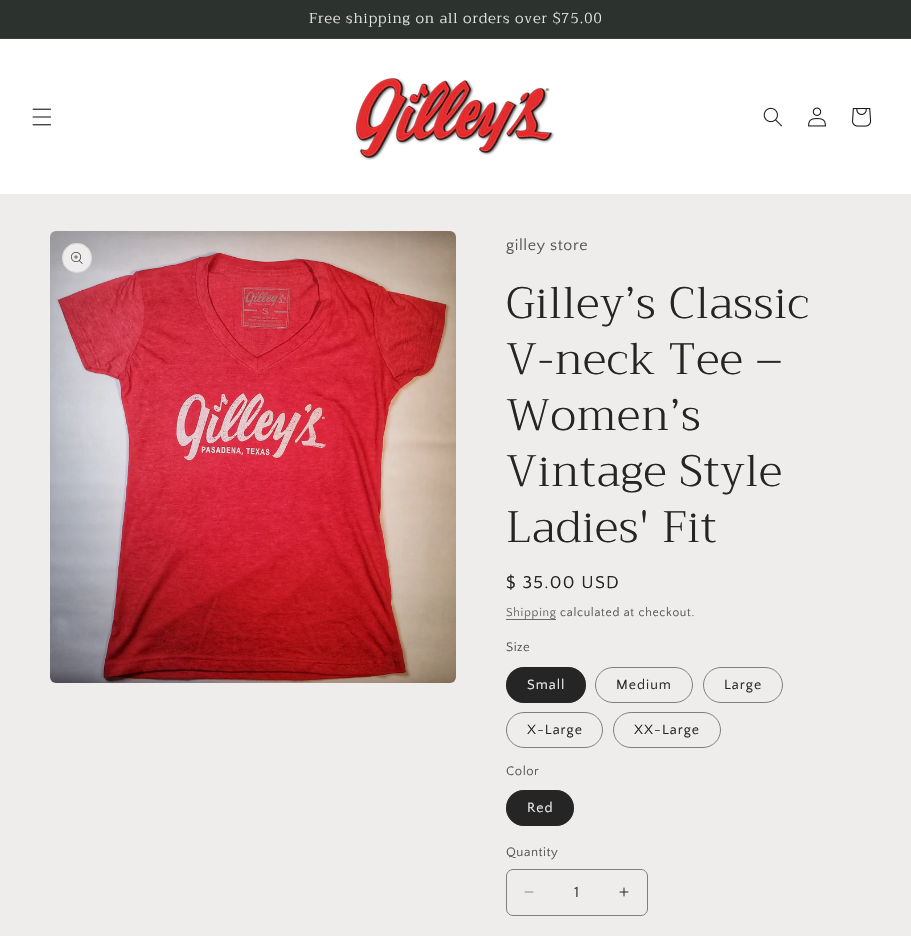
void draw(SkCanvas* canvas) {
    SkPaint paint;
    paint.setAntiAlias(true);
    auto spacedText = [&](const char* s, float x, float y, const SkFont& font, const SkPaint& ink, float letter, float word) {
        std::vector<SkGlyphID> glyphs(font.countText(s, strlen(s), SkTextEncoding::kUTF8));
        std::vector<float> xs(glyphs.size());
        font.textToGlyphs(s, strlen(s), SkTextEncoding::kUTF8, glyphs);
        font.getXPos(glyphs, xs, x);
        float extra = 0;
        for (size_t i = 0; i < glyphs.size(); i++) {
            xs[i] += extra;
            extra += letter + word * (glyphs[i] == font.unicharToGlyph(' '));
        }
        canvas->drawTextBlob(SkTextBlob::MakeFromPosHGlyphs(glyphs, xs, y, font), 0, 0, ink);
    };
    canvas->clear(0xFFEFECEC);
    paint.setColor(0xFF2C332F);
    canvas->drawRect(SkRect::MakeXYWH(0, 0, 911, 38), paint);
    paint.setColor(0xFF3C423E);
    canvas->drawRect(SkRect::MakeXYWH(0, 38, 911, 1), paint);
    SkFont font1(fontMgr->matchFamilyStyle("Trirong", SkFontStyle(300, SkFontStyle::kNormal_Width, SkFontStyle::kUpright_Slant)), 14.3f);
    font1.setSubpixel(true);
    paint.setColor(0xFFEFECEC);
    spacedText("Free shipping on all orders over $75.00", 309, 23, font1, paint, 1, 0);
    paint.setColor(0xFFFFFFFF);
    canvas->drawRect(SkRect::MakeXYWH(0, 39, 911, 155), paint);
    canvas->drawImageRect(SkImages::DeferredFromEncodedData(SkData::MakeFromFileName("img1.png")), SkRect::MakeXYWH(32, 108, 20, 18), SkSamplingOptions());
    canvas->drawImageRect(SkImages::DeferredFromEncodedData(SkData::MakeFromFileName("img2.png")), SkRect::MakeXYWH(354, 77, 201, 83), SkSamplingOptions());
    canvas->drawImageRect(SkImages::DeferredFromEncodedData(SkData::MakeFromFileName("img3.png")), SkRect::MakeXYWH(763, 107, 19, 20), SkSamplingOptions());
    canvas->drawImageRect(SkImages::DeferredFromEncodedData(SkData::MakeFromFileName("img4.png")), SkRect::MakeXYWH(808, 107, 18, 20), SkSamplingOptions());
    canvas->drawImageRect(SkImages::DeferredFromEncodedData(SkData::MakeFromFileName("img5.png")), SkRect::MakeXYWH(852, 108, 20, 19), SkSamplingOptions());
    canvas->drawImageRect(SkImages::DeferredFromEncodedData(SkData::MakeFromFileName("img6.png")), SkRect::MakeXYWH(50, 231, 406, 452), SkSamplingOptions());
    paint.setColor(0xFFEFECEC);
    canvas->drawCircle(77, 258, 15, paint);
    paint.setStyle(SkPaint::kStroke_Style);
    paint.setStrokeWidth(1);
    paint.setColor(0x1A252525);
    canvas->drawCircle(77, 258, 14.5f, paint);
    canvas->drawImageRect(SkImages::DeferredFromEncodedData(SkData::MakeFromFileName("img7.png")), SkRect::MakeXYWH(71, 252, 12, 12), SkSamplingOptions());
    SkFont font2(fontMgr->matchFamilyStyle("Quattrocento Sans", SkFontStyle::Normal()), 16);
    font2.setSubpixel(true);
    paint.setStyle(SkPaint::kFill_Style);
    paint.setColor(0xFF585757);
    spacedText("gilley store", 506, 250, font2, paint, 0.6f, 0);
    SkFont font3(fontMgr->matchFamilyStyle("Trirong", SkFontStyle(300, SkFontStyle::kNormal_Width, SkFontStyle::kUpright_Slant)), 44);
    font3.setSubpixel(true);
    paint.setColor(0xFF252525);
    spacedText("Gilley’s Classic", 506, 318, font3, paint, 0.7f, 0);
    spacedText("V-neck Tee –", 506, 374, font3, paint, 0.7f, 0);
    spacedText("Women’s", 506, 430, font3, paint, 0.7f, 0);
    spacedText("Vintage Style", 506, 486, font3, paint, 0.7f, 0);
    spacedText("Ladies' Fit", 506, 542, font3, paint, 0.7f, 0);
    SkFont font4(fontMgr->matchFamilyStyle("Quattrocento Sans", SkFontStyle::Normal()), 18);
    font4.setSubpixel(true);
    spacedText("$ 35.00 USD", 506, 588, font4, paint, 1.25f, 0);
    paint.setColor(0xFF686D6C);
    canvas->drawRect(SkRect::MakeXYWH(506, 619, 50, 1), paint);
    SkFont font5(fontMgr->matchFamilyStyle("Quattrocento Sans", SkFontStyle::Normal()), 12);
    font5.setSubpixel(true);
    paint.setColor(0xFF686C6B);
    spacedText("Shipping", 506, 616, font5, paint, 0.7f, 0);
    paint.setColor(0xFF585757);
    spacedText("calculated at checkout.", 560, 616, font5, paint, 0.7f, 0);
    SkFont font6(fontMgr->matchFamilyStyle("Quattrocento Sans", SkFontStyle::Normal()), 13);
    font6.setSubpixel(true);
    spacedText("Size", 506, 651, font6, paint, 0.5f, 0);
    paint.setColor(0xFF252525);
    canvas->drawRoundRect(SkRect::MakeXYWH(506, 667, 80, 36), 18, 18, paint);
    paint.setStyle(SkPaint::kStroke_Style);
    paint.setColor(0x8C252525);
    canvas->drawRoundRect(SkRect::MakeXYWH(506.5f, 667.5f, 79, 35), 17.5f, 17.5f, paint);
    SkFont font7(fontMgr->matchFamilyStyle("Quattrocento Sans", SkFontStyle::Normal()), 14);
    font7.setSubpixel(true);
    paint.setStyle(SkPaint::kFill_Style);
    paint.setColor(0xFFEFECEC);
    spacedText("Small", 527, 689, font7, paint, 1, 0);
    paint.setStyle(SkPaint::kStroke_Style);
    paint.setColor(0xFF807F7F);
    canvas->drawRoundRect(SkRect::MakeXYWH(595.5f, 667.5f, 97, 35), 17.5f, 17.5f, paint);
    paint.setStyle(SkPaint::kFill_Style);
    paint.setColor(0xFF252525);
    spacedText("Medium", 616, 689, font7, paint, 1, 0);
    paint.setStyle(SkPaint::kStroke_Style);
    paint.setColor(0xFF807F7F);
    canvas->drawRoundRect(SkRect::MakeXYWH(703.5f, 667.5f, 79, 35), 17.5f, 17.5f, paint);
    paint.setStyle(SkPaint::kFill_Style);
    paint.setColor(0xFF252525);
    spacedText("Large", 724, 689, font7, paint, 1, 0);
    paint.setStyle(SkPaint::kStroke_Style);
    paint.setColor(0xFF807F7F);
    canvas->drawRoundRect(SkRect::MakeXYWH(506.5f, 712.5f, 96, 35), 17.5f, 17.5f, paint);
    paint.setStyle(SkPaint::kFill_Style);
    paint.setColor(0xFF252525);
    spacedText("X-Large", 527, 734, font7, paint, 1, 0);
    paint.setStyle(SkPaint::kStroke_Style);
    paint.setColor(0xFF807F7F);
    canvas->drawRoundRect(SkRect::MakeXYWH(613.5f, 712.5f, 107, 35), 17.5f, 17.5f, paint);
    paint.setStyle(SkPaint::kFill_Style);
    paint.setColor(0xFF252525);
    spacedText("XX-Large", 634, 734, font7, paint, 1, 0);
    paint.setColor(0xFF585757);
    spacedText("Color", 506, 775, font6, paint, 0.5f, 0);
    paint.setColor(0xFF252525);
    canvas->drawRoundRect(SkRect::MakeXYWH(506, 790, 68, 36), 18, 18, paint);
    paint.setStyle(SkPaint::kStroke_Style);
    paint.setColor(0x8C252525);
    canvas->drawRoundRect(SkRect::MakeXYWH(506.5f, 790.5f, 67, 35), 17.5f, 17.5f, paint);
    paint.setStyle(SkPaint::kFill_Style);
    paint.setColor(0xFFEFECEC);
    spacedText("Red", 527, 812, font7, paint, 1, 0);
    paint.setColor(0xFF585757);
    spacedText("Quantity", 506, 856, font6, paint, 0.5f, 0);
    canvas->drawImageRect(SkImages::DeferredFromEncodedData(SkData::MakeFromFileName("img8.png")), SkRect::MakeXYWH(524, 891, 10, 2), SkSamplingOptions());
    canvas->drawImageRect(SkImages::DeferredFromEncodedData(SkData::MakeFromFileName("img9.png")), SkRect::MakeXYWH(619, 887, 10, 10), SkSamplingOptions());
    paint.setStyle(SkPaint::kStroke_Style);
    paint.setColor(0xFF807F7F);
    canvas->drawRoundRect(SkRect::MakeXYWH(506.5f, 869.5f, 141, 46), 6.5f, 6.5f, paint);
    paint.setStyle(SkPaint::kFill_Style);
    paint.setColor(0xFF434343);
    canvas->drawString("1", 574, 897, font2, paint);
}
